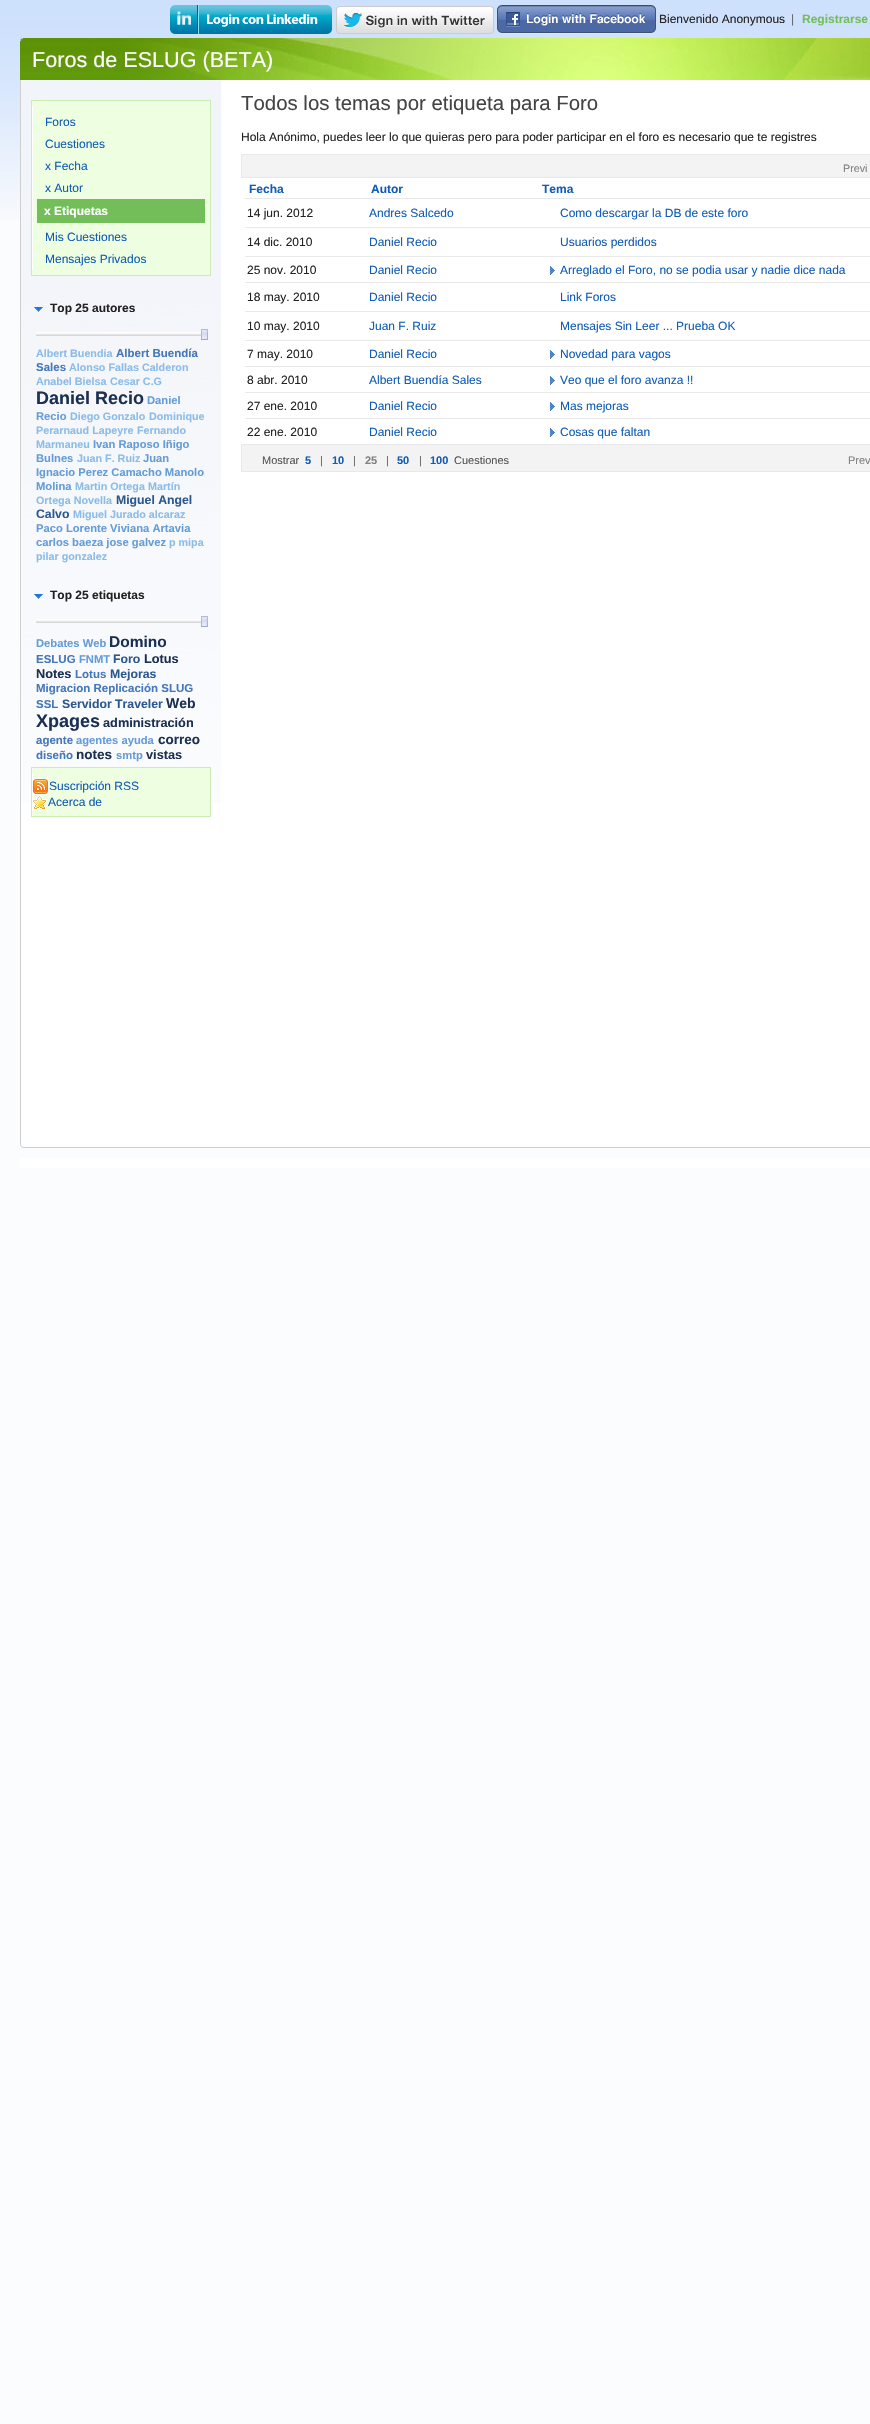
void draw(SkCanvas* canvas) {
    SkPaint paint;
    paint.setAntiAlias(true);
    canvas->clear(0xFFFBFCFD);
    canvas->drawImageRect(SkImages::DeferredFromEncodedData(SkData::MakeFromFileName("img1.png")), SkRect::MakeXYWH(0, 0, 870, 220), SkSamplingOptions());
    canvas->drawImageRect(SkImages::DeferredFromEncodedData(SkData::MakeFromFileName("img2.png")), SkRect::MakeXYWH(170, 5, 162, 29), SkSamplingOptions());
    canvas->drawImageRect(SkImages::DeferredFromEncodedData(SkData::MakeFromFileName("img3.png")), SkRect::MakeXYWH(336, 6, 158, 28), SkSamplingOptions());
    canvas->drawImageRect(SkImages::DeferredFromEncodedData(SkData::MakeFromFileName("img4.png")), SkRect::MakeXYWH(497, 5, 159, 29), SkSamplingOptions());
    SkFont font1(fontMgr->matchFamilyStyle("Liberation Sans", SkFontStyle::Normal()), 12);
    font1.setSubpixel(true);
    paint.setColor(0xFF222222);
    canvas->drawString("Bienvenido Anonymous", 659, 23, font1, paint);
    paint.setColor(0xFF666666);
    canvas->drawString("|", 791, 23, font1, paint);
    SkFont font2(fontMgr->matchFamilyStyle("Liberation Sans", SkFontStyle::Bold()), 12);
    font2.setSubpixel(true);
    paint.setColor(0xFF73BE59);
    canvas->drawString("Registrarse", 802, 23, font2, paint);
    canvas->drawImageRect(SkImages::DeferredFromEncodedData(SkData::MakeFromFileName("img5.png")), SkRect::MakeXYWH(20, 38, 850, 42), SkSamplingOptions());
    SkFont font3(fontMgr->matchFamilyStyle("Liberation Sans", SkFontStyle::Normal()), 21.6f);
    font3.setSubpixel(true);
    paint.setColor(0xFFFFFFFF);
    canvas->drawString("Foros de ESLUG (BETA)", 32, 67, font3, paint);
    canvas->drawPath(SkPathBuilder().moveTo(21, 80).lineTo(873, 80).lineTo(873, 1144).cubicTo(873, 1145.5f, 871.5f, 1147, 870, 1147).lineTo(24, 1147).cubicTo(22.5f, 1147, 21, 1145.5f, 21, 1144).close().detach(), paint);
    canvas->drawImageRect(SkImages::DeferredFromEncodedData(SkData::MakeFromFileName("img6.png")), SkRect::MakeXYWH(21, 80, 200, 723), SkSamplingOptions());
    paint.setColor(0xFFCFCFCF);
    canvas->drawPath(SkPathBuilder(SkPathFillType::kEvenOdd).moveTo(20, 80).lineTo(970, 80).lineTo(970, 1144).cubicTo(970, 1146, 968, 1148, 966, 1148).lineTo(24, 1148).cubicTo(22, 1148, 20, 1146, 20, 1144).close().moveTo(21, 80).lineTo(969, 80).lineTo(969, 1144).cubicTo(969, 1146, 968, 1147, 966, 1147).lineTo(24, 1147).cubicTo(22, 1147, 21, 1146, 21, 1144).close().detach(), paint);
    paint.setColor(0xFFEEFEE1);
    canvas->drawRect(SkRect::MakeXYWH(32, 101, 178, 174), paint);
    paint.setColor(0xFFFFFFFF);
    canvas->drawRect(SkRect::MakeXYWH(32, 101, 1, 1), paint);
    paint.setStyle(SkPaint::kStroke_Style);
    paint.setStrokeWidth(1);
    paint.setColor(0xFFCCEBB5);
    canvas->drawRect(SkRect::MakeXYWH(31.5f, 100.5f, 179, 175), paint);
    paint.setStyle(SkPaint::kFill_Style);
    paint.setColor(0xFFFFFFFF);
    canvas->drawRect(SkRect::MakeXYWH(32, 274, 1, 1), paint);
    canvas->drawRect(SkRect::MakeXYWH(32, 106, 1, 164), paint);
    paint.setColor(0xFF105CB6);
    canvas->drawString("Foros", 45, 126, font1, paint);
    canvas->drawString("Cuestiones", 45, 148, font1, paint);
    canvas->drawString("x Fecha", 45, 170, font1, paint);
    canvas->drawString("x Autor", 45, 192, font1, paint);
    paint.setColor(0xFF73BE59);
    canvas->drawRect(SkRect::MakeXYWH(37, 199, 168, 24), paint);
    paint.setColor(0xFFFFFFFF);
    canvas->drawString("x Etiquetas", 44, 215, font2, paint);
    paint.setColor(0xFF105CB6);
    canvas->drawString("Mis Cuestiones", 45, 241, font1, paint);
    canvas->drawString("Mensajes Privados", 45, 263, font1, paint);
    canvas->drawImageRect(SkImages::DeferredFromEncodedData(SkData::MakeFromFileName("img7.png")), SkRect::MakeXYWH(34, 307, 9, 5), SkSamplingOptions());
    paint.setColor(0xFF222222);
    canvas->drawString("Top 25 autores", 50, 312, font2, paint);
    canvas->drawImageRect(SkImages::DeferredFromEncodedData(SkData::MakeFromFileName("img8.png")), SkRect::MakeXYWH(36, 332, 2, 4), SkSamplingOptions());
    canvas->drawImageRect(SkImages::DeferredFromEncodedData(SkData::MakeFromFileName("img9.png")), SkRect::MakeXYWH(38, 332, 163, 4), SkSamplingOptions());
    canvas->drawImageRect(SkImages::DeferredFromEncodedData(SkData::MakeFromFileName("img10.png")), SkRect::MakeXYWH(201, 329, 7, 11), SkSamplingOptions());
    SkFont font4(fontMgr->matchFamilyStyle("Liberation Sans", SkFontStyle::Bold()), 10.75f);
    font4.setSubpixel(true);
    paint.setColor(0xFF8BBCE8);
    canvas->drawString("Albert Buendia", 36, 357, font4, paint);
    SkFont font5(fontMgr->matchFamilyStyle("Liberation Sans", SkFontStyle::Bold()), 11.5f);
    font5.setSubpixel(true);
    paint.setColor(0xFF4477BB);
    canvas->drawString("Albert Buendía", 116, 357, font5, paint);
    canvas->drawString("Sales", 36, 371, font5, paint);
    paint.setColor(0xFF8BBCE8);
    canvas->drawString("Alonso Fallas Calderon", 69, 371, font4, paint);
    canvas->drawString("Anabel Bielsa", 36, 385, font4, paint);
    canvas->drawString("Cesar C.G", 110, 385, font4, paint);
    SkFont font6(fontMgr->matchFamilyStyle("Liberation Sans", SkFontStyle::Bold()), 18);
    font6.setSubpixel(true);
    paint.setColor(0xFF1C3052);
    canvas->drawString("Daniel Recio", 36, 404, font6, paint);
    SkFont font7(fontMgr->matchFamilyStyle("Liberation Sans", SkFontStyle::Bold()), 11.2f);
    font7.setSubpixel(true);
    paint.setColor(0xFF649CD8);
    canvas->drawString("Daniel", 147, 404, font7, paint);
    canvas->drawString("Recio", 36, 420, font7, paint);
    paint.setColor(0xFF8BBCE8);
    canvas->drawString("Diego Gonzalo", 70, 420, font4, paint);
    canvas->drawString("Dominique", 149, 420, font4, paint);
    canvas->drawString("Perarnaud Lapeyre", 36, 434, font4, paint);
    canvas->drawString("Fernando", 137, 434, font4, paint);
    canvas->drawString("Marmaneu", 36, 448, font4, paint);
    paint.setColor(0xFF649CD8);
    canvas->drawString("Ivan Raposo Iñigo", 93, 448, font7, paint);
    canvas->drawString("Bulnes", 36, 462, font7, paint);
    paint.setColor(0xFF8BBCE8);
    canvas->drawString("Juan F. Ruiz", 77, 462, font4, paint);
    paint.setColor(0xFF649CD8);
    canvas->drawString("Juan", 143, 462, font7, paint);
    canvas->drawString("Ignacio Perez Camacho Manolo", 36, 476, font7, paint);
    canvas->drawString("Molina", 36, 490, font7, paint);
    paint.setColor(0xFF8BBCE8);
    canvas->drawString("Martin Ortega", 75, 490, font4, paint);
    canvas->drawString("Martín", 148, 490, font4, paint);
    canvas->drawString("Ortega Novella", 36, 504, font4, paint);
    SkFont font8(fontMgr->matchFamilyStyle("Liberation Sans", SkFontStyle::Bold()), 12.25f);
    font8.setSubpixel(true);
    paint.setColor(0xFF2B588E);
    canvas->drawString("Miguel Angel", 116, 504, font8, paint);
    canvas->drawString("Calvo", 36, 518, font8, paint);
    paint.setColor(0xFF8BBCE8);
    canvas->drawString("Miguel Jurado alcaraz", 73, 518, font4, paint);
    paint.setColor(0xFF649CD8);
    canvas->drawString("Paco Lorente Viviana Artavia", 36, 532, font7, paint);
    canvas->drawString("carlos baeza jose galvez", 36, 546, font7, paint);
    paint.setColor(0xFF8BBCE8);
    canvas->drawString("p mipa", 169, 546, font4, paint);
    canvas->drawString("pilar gonzalez", 36, 560, font4, paint);
    canvas->drawImageRect(SkImages::DeferredFromEncodedData(SkData::MakeFromFileName("img11.png")), SkRect::MakeXYWH(34, 594, 9, 5), SkSamplingOptions());
    paint.setColor(0xFF222222);
    canvas->drawString("Top 25 etiquetas", 50, 599, font2, paint);
    canvas->drawImageRect(SkImages::DeferredFromEncodedData(SkData::MakeFromFileName("img8.png")), SkRect::MakeXYWH(36, 619, 2, 4), SkSamplingOptions());
    canvas->drawImageRect(SkImages::DeferredFromEncodedData(SkData::MakeFromFileName("img9.png")), SkRect::MakeXYWH(38, 619, 163, 4), SkSamplingOptions());
    canvas->drawImageRect(SkImages::DeferredFromEncodedData(SkData::MakeFromFileName("img10.png")), SkRect::MakeXYWH(201, 616, 7, 11), SkSamplingOptions());
    paint.setColor(0xFF649CD8);
    canvas->drawString("Debates Web", 36, 647, font7, paint);
    SkFont font9(fontMgr->matchFamilyStyle("Liberation Sans", SkFontStyle::Bold()), 15.5f);
    font9.setSubpixel(true);
    paint.setColor(0xFF1C3052);
    canvas->drawString("Domino", 109, 647, font9, paint);
    paint.setColor(0xFF4477BB);
    canvas->drawString("ESLUG", 36, 663, font5, paint);
    paint.setColor(0xFF649CD8);
    canvas->drawString("FNMT", 79, 663, font7, paint);
    paint.setColor(0xFF2B588E);
    canvas->drawString("Foro", 113, 663, font8, paint);
    SkFont font10(fontMgr->matchFamilyStyle("Liberation Sans", SkFontStyle::Bold()), 12.75f);
    font10.setSubpixel(true);
    paint.setColor(0xFF1C3052);
    canvas->drawString("Lotus", 144, 663, font10, paint);
    canvas->drawString("Notes", 36, 678, font10, paint);
    paint.setColor(0xFF4477BB);
    canvas->drawString("Lotus", 75, 678, font5, paint);
    paint.setColor(0xFF2B588E);
    canvas->drawString("Mejoras", 110, 678, font8, paint);
    paint.setColor(0xFF4477BB);
    canvas->drawString("Migracion Replicación SLUG", 36, 692, font5, paint);
    canvas->drawString("SSL", 36, 708, font5, paint);
    paint.setColor(0xFF2B588E);
    canvas->drawString("Servidor Traveler", 62, 708, font8, paint);
    SkFont font11(fontMgr->matchFamilyStyle("Liberation Sans", SkFontStyle::Bold()), 14);
    font11.setSubpixel(true);
    paint.setColor(0xFF1C3052);
    canvas->drawString("Web", 166, 708, font11, paint);
    canvas->drawString("Xpages", 36, 727, font6, paint);
    canvas->drawString("administración", 103, 727, font10, paint);
    paint.setColor(0xFF4477BB);
    canvas->drawString("agente", 36, 744, font5, paint);
    paint.setColor(0xFF649CD8);
    canvas->drawString("agentes ayuda", 76, 744, font7, paint);
    SkFont font12(fontMgr->matchFamilyStyle("Liberation Sans", SkFontStyle::Bold()), 13.5f);
    font12.setSubpixel(true);
    paint.setColor(0xFF1C3052);
    canvas->drawString("correo", 158, 744, font12, paint);
    paint.setColor(0xFF4477BB);
    canvas->drawString("diseño", 36, 759, font5, paint);
    paint.setColor(0xFF1C3052);
    canvas->drawString("notes", 76, 759, font12, paint);
    paint.setColor(0xFF649CD8);
    canvas->drawString("smtp", 116, 759, font7, paint);
    paint.setColor(0xFF1C3052);
    canvas->drawString("vistas", 146, 759, font10, paint);
    paint.setColor(0xFFEEFEE1);
    canvas->drawRect(SkRect::MakeXYWH(32, 768, 178, 48), paint);
    paint.setColor(0xFFFFFFFF);
    canvas->drawRect(SkRect::MakeXYWH(32, 768, 1, 1), paint);
    paint.setStyle(SkPaint::kStroke_Style);
    paint.setColor(0xFFCCEBB5);
    canvas->drawRect(SkRect::MakeXYWH(31.5f, 767.5f, 179, 49), paint);
    paint.setStyle(SkPaint::kFill_Style);
    paint.setColor(0xFFFFFFFF);
    canvas->drawRect(SkRect::MakeXYWH(32, 815, 1, 1), paint);
    canvas->drawRect(SkRect::MakeXYWH(32, 773, 1, 38), paint);
    canvas->drawImageRect(SkImages::DeferredFromEncodedData(SkData::MakeFromFileName("img12.png")), SkRect::MakeXYWH(33, 778, 16, 17), SkSamplingOptions());
    paint.setColor(0xFF105CB6);
    canvas->drawString("Suscripción RSS", 49, 790, font1, paint);
    canvas->drawImageRect(SkImages::DeferredFromEncodedData(SkData::MakeFromFileName("img13.png")), SkRect::MakeXYWH(33, 795, 14, 15), SkSamplingOptions());
    canvas->drawString("Acerca de", 48, 806, font1, paint);
    SkFont font13(fontMgr->matchFamilyStyle("Liberation Sans", SkFontStyle::Normal()), 20.4f);
    font13.setSubpixel(true);
    paint.setColor(0xFF444444);
    canvas->drawString("Todos los temas por etiqueta para Foro", 241, 110, font13, paint);
    paint.setColor(0xFF222222);
    canvas->drawString("Hola Anónimo, puedes leer lo que quieras pero para poder participar en el foro es necesario que te registres", 241, 141, font1, paint);
    paint.setColor(0xFFF3F3F3);
    canvas->drawRect(SkRect::MakeXYWH(242, 154, 7, 24), paint);
    paint.setColor(0xFFE8E8E9);
    canvas->drawRect(SkRect::MakeXYWH(241, 154, 629, 1), paint);
    canvas->drawRect(SkRect::MakeXYWH(241, 177, 629, 1), paint);
    canvas->drawRect(SkRect::MakeXYWH(241, 154, 1, 24), paint);
    paint.setColor(0xFFF3F3F3);
    canvas->drawRect(SkRect::MakeXYWH(249, 155, 621, 22), paint);
    SkFont font14(fontMgr->matchFamilyStyle("Liberation Sans", SkFontStyle::Normal()), 10.75f);
    font14.setSubpixel(true);
    paint.setColor(0xFF808080);
    canvas->drawString("Previ", 843, 172, font14, paint);
    paint.setColor(0xFF105CB6);
    canvas->drawString("Fecha", 249, 193, font2, paint);
    canvas->drawString("Autor", 371, 193, font2, paint);
    canvas->drawString("Tema", 542, 193, font2, paint);
    paint.setColor(0xFF222222);
    canvas->drawString("14 jun. 2012", 247, 217, font1, paint);
    paint.setColor(0xFF105CB6);
    canvas->drawString("Andres Salcedo", 369, 217, font1, paint);
    paint.setColor(0xFFE8E8E9);
    canvas->drawRect(SkRect::MakeXYWH(245, 198, 625, 1), paint);
    paint.setColor(0xFF105CB6);
    canvas->drawString("Como descargar la DB de este foro", 560, 217, font1, paint);
    paint.setColor(0xFF222222);
    canvas->drawString("14 dic. 2010", 247, 246, font1, paint);
    paint.setColor(0xFF105CB6);
    canvas->drawString("Daniel Recio", 369, 246, font1, paint);
    paint.setColor(0xFFE8E8E9);
    canvas->drawRect(SkRect::MakeXYWH(245, 227, 625, 1), paint);
    paint.setColor(0xFF105CB6);
    canvas->drawString("Usuarios perdidos", 560, 246, font1, paint);
    paint.setColor(0xFF222222);
    canvas->drawString("25 nov. 2010", 247, 274, font1, paint);
    paint.setColor(0xFF105CB6);
    canvas->drawString("Daniel Recio", 369, 274, font1, paint);
    paint.setColor(0xFFE8E8E9);
    canvas->drawRect(SkRect::MakeXYWH(245, 256, 625, 1), paint);
    canvas->drawImageRect(SkImages::DeferredFromEncodedData(SkData::MakeFromFileName("img14.png")), SkRect::MakeXYWH(550, 266, 5, 9), SkSamplingOptions());
    paint.setColor(0xFF105CB6);
    canvas->drawString("Arreglado el Foro, no se podia usar y nadie dice nada", 560, 274, font1, paint);
    paint.setColor(0xFF222222);
    canvas->drawString("18 may. 2010", 247, 301, font1, paint);
    paint.setColor(0xFF105CB6);
    canvas->drawString("Daniel Recio", 369, 301, font1, paint);
    paint.setColor(0xFFE8E8E9);
    canvas->drawRect(SkRect::MakeXYWH(245, 282, 625, 1), paint);
    paint.setColor(0xFF105CB6);
    canvas->drawString("Link Foros", 560, 301, font1, paint);
    paint.setColor(0xFF222222);
    canvas->drawString("10 may. 2010", 247, 330, font1, paint);
    paint.setColor(0xFF105CB6);
    canvas->drawString("Juan F. Ruiz", 369, 330, font1, paint);
    paint.setColor(0xFFE8E8E9);
    canvas->drawRect(SkRect::MakeXYWH(245, 311, 625, 1), paint);
    paint.setColor(0xFF105CB6);
    canvas->drawString("Mensajes Sin Leer ... Prueba OK", 560, 330, font1, paint);
    paint.setColor(0xFF222222);
    canvas->drawString("7 may. 2010", 247, 358, font1, paint);
    paint.setColor(0xFF105CB6);
    canvas->drawString("Daniel Recio", 369, 358, font1, paint);
    paint.setColor(0xFFE8E8E9);
    canvas->drawRect(SkRect::MakeXYWH(245, 340, 625, 1), paint);
    canvas->drawImageRect(SkImages::DeferredFromEncodedData(SkData::MakeFromFileName("img14.png")), SkRect::MakeXYWH(550, 350, 5, 9), SkSamplingOptions());
    paint.setColor(0xFF105CB6);
    canvas->drawString("Novedad para vagos", 560, 358, font1, paint);
    paint.setColor(0xFF222222);
    canvas->drawString("8 abr. 2010", 247, 384, font1, paint);
    paint.setColor(0xFF105CB6);
    canvas->drawString("Albert Buendía Sales", 369, 384, font1, paint);
    paint.setColor(0xFFE8E8E9);
    canvas->drawRect(SkRect::MakeXYWH(245, 366, 625, 1), paint);
    canvas->drawImageRect(SkImages::DeferredFromEncodedData(SkData::MakeFromFileName("img14.png")), SkRect::MakeXYWH(550, 376, 5, 9), SkSamplingOptions());
    paint.setColor(0xFF105CB6);
    canvas->drawString("Veo que el foro avanza !!", 560, 384, font1, paint);
    paint.setColor(0xFF222222);
    canvas->drawString("27 ene. 2010", 247, 410, font1, paint);
    paint.setColor(0xFF105CB6);
    canvas->drawString("Daniel Recio", 369, 410, font1, paint);
    paint.setColor(0xFFE8E8E9);
    canvas->drawRect(SkRect::MakeXYWH(245, 392, 625, 1), paint);
    canvas->drawImageRect(SkImages::DeferredFromEncodedData(SkData::MakeFromFileName("img14.png")), SkRect::MakeXYWH(550, 402, 5, 9), SkSamplingOptions());
    paint.setColor(0xFF105CB6);
    canvas->drawString("Mas mejoras", 560, 410, font1, paint);
    paint.setColor(0xFF222222);
    canvas->drawString("22 ene. 2010", 247, 436, font1, paint);
    paint.setColor(0xFF105CB6);
    canvas->drawString("Daniel Recio", 369, 436, font1, paint);
    paint.setColor(0xFFE8E8E9);
    canvas->drawRect(SkRect::MakeXYWH(245, 418, 625, 1), paint);
    canvas->drawImageRect(SkImages::DeferredFromEncodedData(SkData::MakeFromFileName("img14.png")), SkRect::MakeXYWH(550, 428, 5, 9), SkSamplingOptions());
    paint.setColor(0xFF105CB6);
    canvas->drawString("Cosas que faltan", 560, 436, font1, paint);
    paint.setColor(0xFFF3F3F3);
    canvas->drawRect(SkRect::MakeXYWH(242, 444, 7, 28), paint);
    paint.setColor(0xFFE8E8E9);
    canvas->drawRect(SkRect::MakeXYWH(241, 444, 629, 1), paint);
    canvas->drawRect(SkRect::MakeXYWH(241, 471, 629, 1), paint);
    canvas->drawRect(SkRect::MakeXYWH(241, 444, 1, 28), paint);
    paint.setColor(0xFFF3F3F3);
    canvas->drawRect(SkRect::MakeXYWH(249, 445, 621, 26), paint);
    SkFont font15(fontMgr->matchFamilyStyle("Liberation Sans", SkFontStyle::Normal()), 11);
    font15.setSubpixel(true);
    paint.setColor(0xFF545454);
    canvas->drawString("Mostrar", 262, 464, font15, paint);
    SkFont font16(fontMgr->matchFamilyStyle("Liberation Sans", SkFontStyle::Bold()), 11);
    font16.setSubpixel(true);
    paint.setColor(0xFF105CB6);
    canvas->drawString("5", 305, 464, font16, paint);
    paint.setColor(0xFF666666);
    canvas->drawString("|", 320, 464, font15, paint);
    paint.setColor(0xFF105CB6);
    canvas->drawString("10", 332, 464, font16, paint);
    paint.setColor(0xFF666666);
    canvas->drawString("|", 353, 464, font15, paint);
    paint.setColor(0xFF808080);
    canvas->drawString("25", 365, 464, font16, paint);
    paint.setColor(0xFF666666);
    canvas->drawString("|", 386, 464, font15, paint);
    paint.setColor(0xFF105CB6);
    canvas->drawString("50", 397, 464, font16, paint);
    paint.setColor(0xFF666666);
    canvas->drawString("|", 419, 464, font15, paint);
    paint.setColor(0xFF105CB6);
    canvas->drawString("100", 430, 464, font16, paint);
    paint.setColor(0xFF545454);
    canvas->drawString("Cuestiones", 454, 464, font15, paint);
    paint.setColor(0xFF808080);
    canvas->drawString("Prev", 848, 464, font15, paint);
    paint.setColor(0xFFFFFFFF);
    canvas->drawRect(SkRect::MakeXYWH(20, 1158, 850, 10), paint);
}
